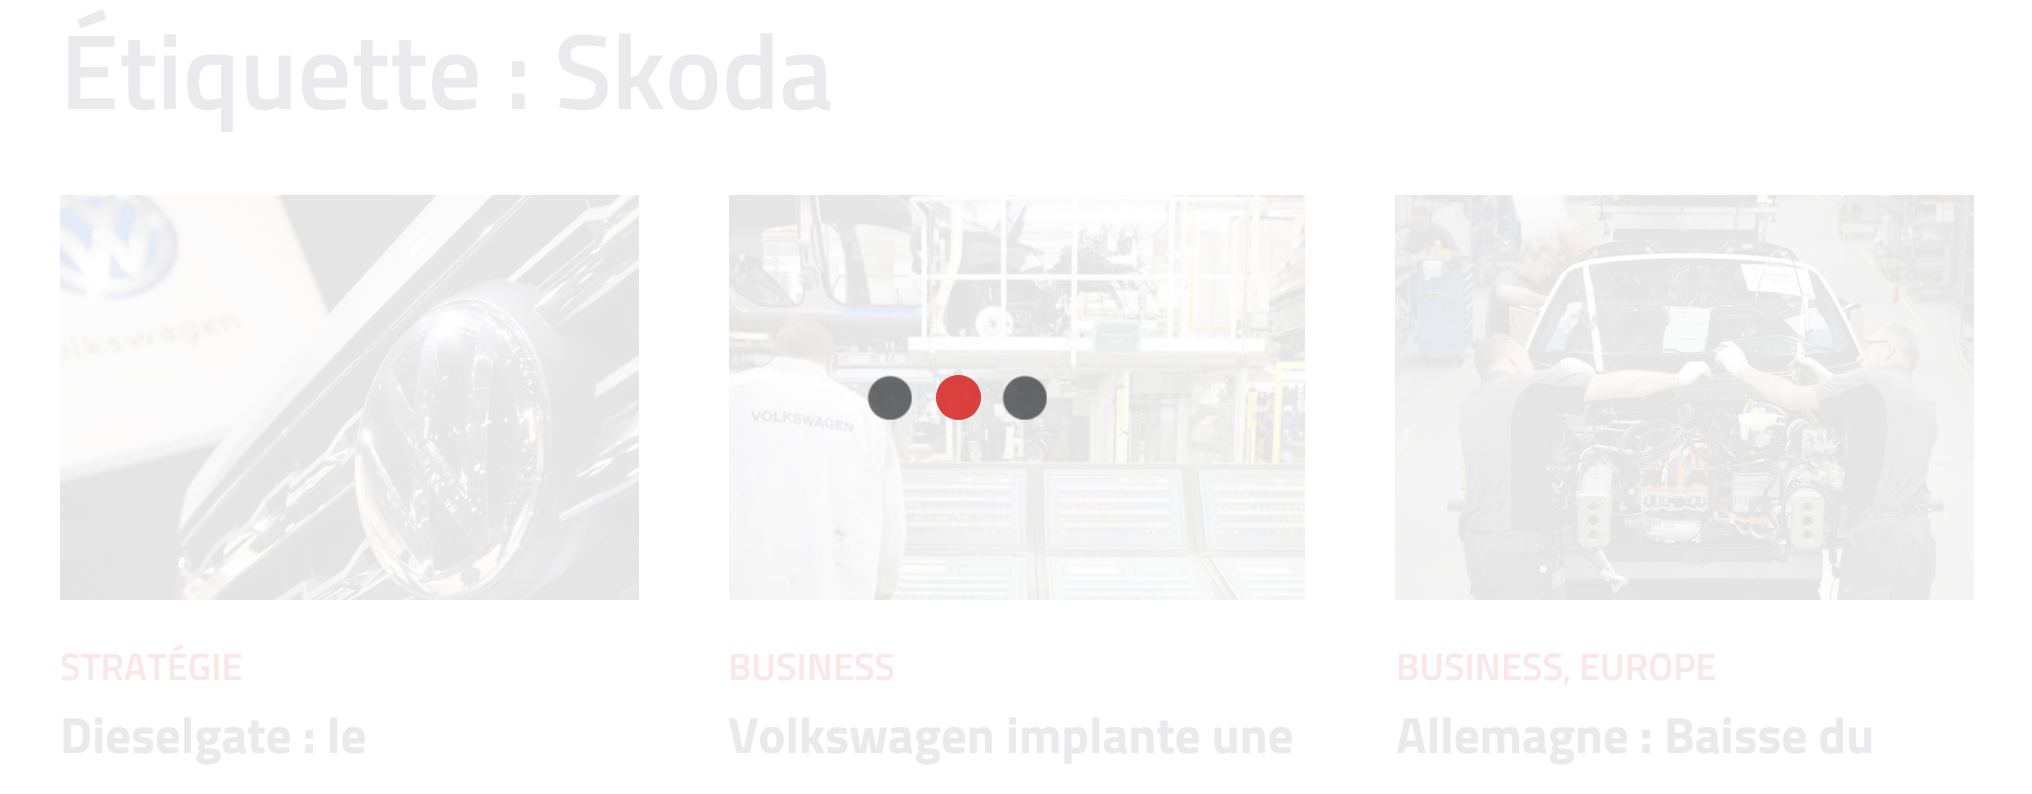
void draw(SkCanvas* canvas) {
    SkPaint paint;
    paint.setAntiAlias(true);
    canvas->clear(0xFFFFFFFF);
    SkFont font1(fontMgr->matchFamilyStyle("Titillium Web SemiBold", SkFontStyle(600, SkFontStyle::kNormal_Width, SkFontStyle::kUpright_Slant)), 106.5f);
    font1.setSubpixel(true);
    paint.setColor(0xFFEAEAEC);
    canvas->drawString("Étiquette : Skoda", 60, 109, font1, paint);
    canvas->drawImageRect(SkImages::DeferredFromEncodedData(SkData::MakeFromFileName("img1.png")), SkRect::MakeXYWH(60, 195, 579, 405), SkSamplingOptions());
    SkFont font2(fontMgr->matchFamilyStyle("Titillium Web SemiBold", SkFontStyle(600, SkFontStyle::kNormal_Width, SkFontStyle::kUpright_Slant)), 38);
    font2.setSubpixel(true);
    paint.setColor(0xFFFBE7E7);
    canvas->drawString("STRATÉGIE", 60, 680, font2, paint);
    SkFont font3(fontMgr->matchFamilyStyle("Titillium Web", SkFontStyle::Bold()), 50.6f);
    font3.setSubpixel(true);
    paint.setColor(0xFFEAEAEC);
    canvas->drawString("Dieselgate : le", 60, 753, font3, paint);
    canvas->drawImageRect(SkImages::DeferredFromEncodedData(SkData::MakeFromFileName("img2.png")), SkRect::MakeXYWH(729, 195, 576, 405), SkSamplingOptions());
    paint.setColor(0xFFFBE7E7);
    canvas->drawString("BUSINESS", 728, 680, font2, paint);
    paint.setColor(0xFFEAEAEC);
    canvas->drawString("Volkswagen implante une", 728, 753, font3, paint);
    canvas->drawImageRect(SkImages::DeferredFromEncodedData(SkData::MakeFromFileName("img3.png")), SkRect::MakeXYWH(1395, 195, 579, 405), SkSamplingOptions());
    paint.setColor(0xFFFBE7E7);
    canvas->drawString("BUSINESS", 1396, 680, font2, paint);
    SkFont font4(fontMgr->matchFamilyStyle("Titillium Web", SkFontStyle::Normal()), 38);
    font4.setSubpixel(true);
    paint.setColor(0xFFEAEAEC);
    canvas->drawString(",", 1563, 680, font4, paint);
    paint.setColor(0xFFFBE7E7);
    canvas->drawString("EUROPE", 1579, 680, font2, paint);
    paint.setColor(0xFFEAEAEC);
    canvas->drawString("Allemagne : Baisse du", 1396, 753, font3, paint);
    paint.setColor(0xA8D82926);
    canvas->drawCircle(958.5f, 397.5f, 22.5f, paint);
    canvas->drawCircle(958.5f, 397.5f, 22.5f, paint);
}
